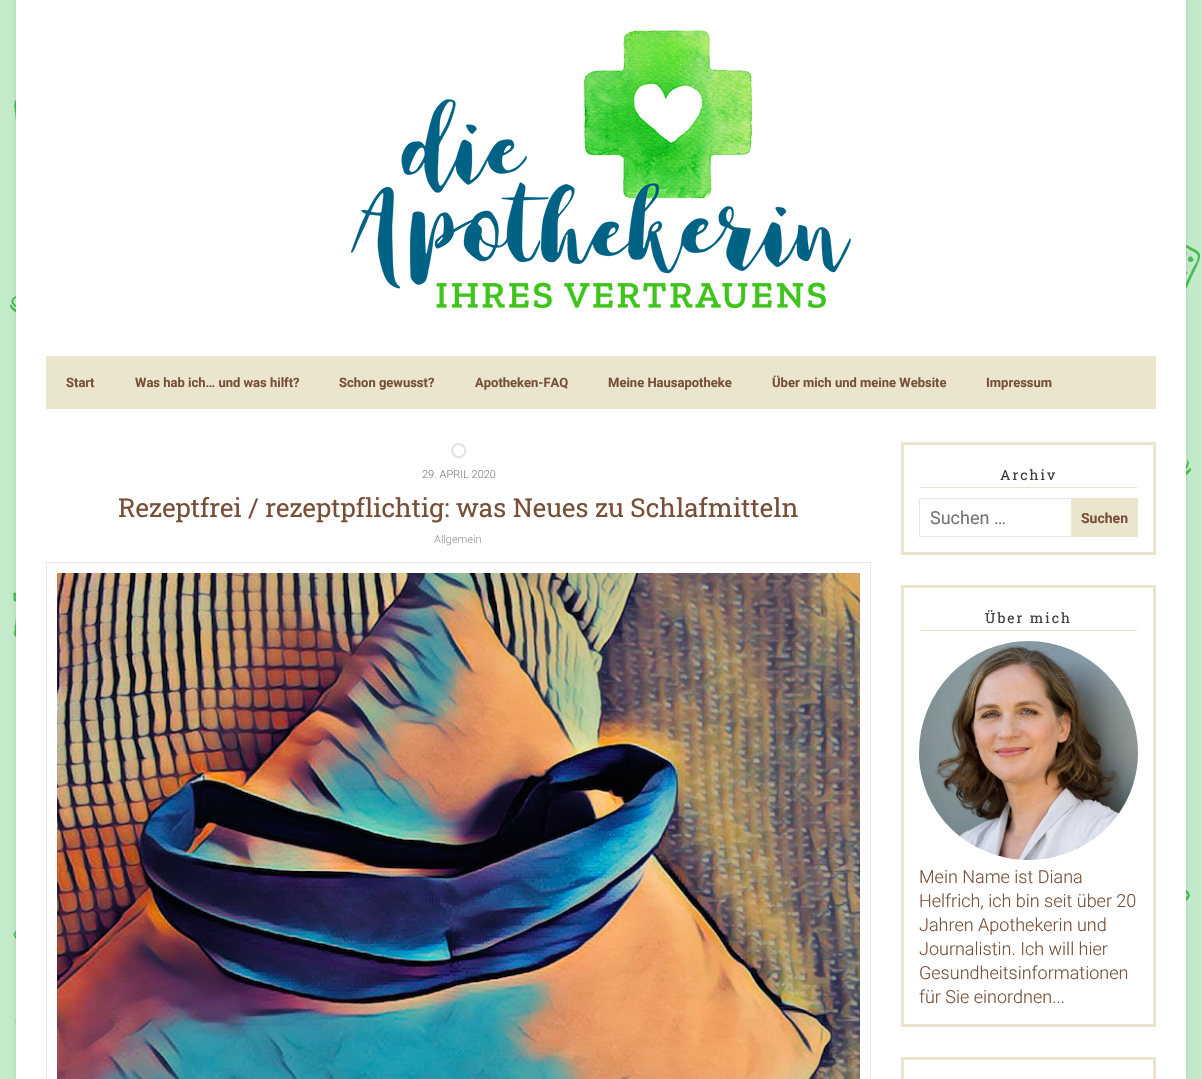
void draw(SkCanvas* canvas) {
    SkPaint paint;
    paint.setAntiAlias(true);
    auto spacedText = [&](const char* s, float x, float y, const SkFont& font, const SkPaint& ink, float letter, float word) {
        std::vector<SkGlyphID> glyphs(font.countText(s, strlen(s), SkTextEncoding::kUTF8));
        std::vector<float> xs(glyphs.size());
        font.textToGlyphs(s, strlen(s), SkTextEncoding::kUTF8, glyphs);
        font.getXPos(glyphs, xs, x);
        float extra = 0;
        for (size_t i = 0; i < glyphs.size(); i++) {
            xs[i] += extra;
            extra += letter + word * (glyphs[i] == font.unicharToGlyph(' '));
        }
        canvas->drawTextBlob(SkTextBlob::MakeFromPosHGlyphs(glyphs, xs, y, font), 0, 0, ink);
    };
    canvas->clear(0xFFFFFFFF);
    canvas->drawImageRect(SkImages::DeferredFromEncodedData(SkData::MakeFromFileName("img1.png")), SkRect::MakeXYWH(0, 0, 1202, 1079), SkSamplingOptions());
    paint.setColor(0x1A000000);
    paint.setMaskFilter(SkMaskFilter::MakeBlur(kNormal_SkBlurStyle, 2.5f));
    canvas->drawRect(SkRect::MakeXYWH(16, 0, 1170, 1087), paint);
    paint.setMaskFilter(nullptr);
    paint.setColor(0xFFFFFFFF);
    canvas->drawRect(SkRect::MakeXYWH(16, 0, 1170, 1079), paint);
    canvas->drawImageRect(SkImages::DeferredFromEncodedData(SkData::MakeFromFileName("img2.png")), SkRect::MakeXYWH(351, 30, 500, 278), SkSamplingOptions());
    paint.setColor(0xFFECE5CE);
    canvas->drawRect(SkRect::MakeXYWH(46, 356, 1110, 53), paint);
    SkFont font1(fontMgr->matchFamilyStyle("Roboto", SkFontStyle::Bold()), 13);
    font1.setSubpixel(true);
    paint.setColor(0xFF774F38);
    canvas->drawString("Start", 66, 387, font1, paint);
    canvas->drawString("Was hab ich… und was hilft?", 135, 387, font1, paint);
    canvas->drawString("Schon gewusst?", 339, 387, font1, paint);
    canvas->drawString("Apotheken-FAQ", 475, 387, font1, paint);
    canvas->drawString("Meine Hausapotheke", 608, 387, font1, paint);
    canvas->drawString("Über mich und meine Website", 772, 387, font1, paint);
    canvas->drawString("Impressum", 986, 387, font1, paint);
    canvas->drawImageRect(SkImages::DeferredFromEncodedData(SkData::MakeFromFileName("img3.png")), SkRect::MakeXYWH(451, 443, 16, 16), SkSamplingOptions());
    SkFont font2(fontMgr->matchFamilyStyle("Roboto", SkFontStyle(300, SkFontStyle::kNormal_Width, SkFontStyle::kUpright_Slant)), 11);
    font2.setSubpixel(true);
    paint.setColor(0xFF818181);
    canvas->drawString("29. APRIL 2020", 422, 478, font2, paint);
    SkFont font3(fontMgr->matchFamilyStyle("Roboto Slab", SkFontStyle::Normal()), 26);
    font3.setSubpixel(true);
    paint.setColor(0xFF774F38);
    canvas->drawString("Rezeptfrei / rezeptpflichtig: was Neues zu Schlafmitteln", 118, 517, font3, paint);
    paint.setColor(0xFF999999);
    canvas->drawString("Allgemein", 434, 543, font2, paint);
    paint.setStyle(SkPaint::kStroke_Style);
    paint.setStrokeWidth(1);
    paint.setColor(0xFFE6E6E6);
    canvas->drawRect(SkRect::MakeXYWH(46.5f, 562.5f, 824, 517), paint);
    canvas->drawImageRect(SkImages::DeferredFromEncodedData(SkData::MakeFromFileName("img4.png")), SkRect::MakeXYWH(57, 573, 803, 506), SkSamplingOptions());
    paint.setStrokeWidth(3);
    paint.setColor(0xFFECE5CE);
    canvas->drawRect(SkRect::MakeXYWH(902.5f, 443.5f, 252, 110), paint);
    paint.setStyle(SkPaint::kFill_Style);
    canvas->drawRect(SkRect::MakeXYWH(920, 487, 217, 1), paint);
    SkFont font4(fontMgr->matchFamilyStyle("Roboto Slab", SkFontStyle::Normal()), 14);
    font4.setSubpixel(true);
    paint.setColor(0xFF3D3D3D);
    spacedText("Archiv", 1000, 480, font4, paint, 2, 0);
    paint.setStyle(SkPaint::kStroke_Style);
    paint.setStrokeWidth(1);
    paint.setColor(0xFFE6E6E6);
    canvas->drawRect(SkRect::MakeXYWH(919.5f, 498.5f, 218, 38), paint);
    SkFont font5(fontMgr->matchFamilyStyle("Roboto", SkFontStyle::Normal()), 18);
    font5.setSubpixel(true);
    paint.setStyle(SkPaint::kFill_Style);
    paint.setColor(0xFF757575);
    canvas->drawString("Suchen …", 930, 524, font5, paint);
    paint.setColor(0xFFECE5CE);
    canvas->drawRoundRect(SkRect::MakeXYWH(1071, 498, 67, 39), 2, 2, paint);
    SkFont font6(fontMgr->matchFamilyStyle("Roboto", SkFontStyle::Bold()), 14);
    font6.setSubpixel(true);
    paint.setColor(0xFF774F38);
    canvas->drawString("Suchen", 1081, 523, font6, paint);
    paint.setStyle(SkPaint::kStroke_Style);
    paint.setStrokeWidth(3);
    paint.setColor(0xFFECE5CE);
    canvas->drawRect(SkRect::MakeXYWH(902.5f, 586.5f, 252, 439), paint);
    paint.setStyle(SkPaint::kFill_Style);
    canvas->drawRect(SkRect::MakeXYWH(920, 630, 217, 1), paint);
    paint.setColor(0xFF3D3D3D);
    spacedText("Über mich", 985, 623, font4, paint, 2, 0);
    canvas->drawImageRect(SkImages::DeferredFromEncodedData(SkData::MakeFromFileName("img5.png")), SkRect::MakeXYWH(919, 641, 219, 219), SkSamplingOptions());
    SkFont font7(fontMgr->matchFamilyStyle("Roboto", SkFontStyle(300, SkFontStyle::kNormal_Width, SkFontStyle::kUpright_Slant)), 18);
    font7.setSubpixel(true);
    paint.setColor(0xFF774F38);
    canvas->drawString("Mein Name ist Diana", 919, 883, font7, paint);
    canvas->drawString("Helfrich, ich bin seit über 20", 919, 907, font7, paint);
    canvas->drawString("Jahren Apothekerin und", 919, 931, font7, paint);
    canvas->drawString("Journalistin. Ich will hier", 919, 955, font7, paint);
    canvas->drawString("Gesundheitsinformationen", 919, 979, font7, paint);
    canvas->drawString("für Sie einordnen...", 919, 1003, font7, paint);
    paint.setStyle(SkPaint::kStroke_Style);
    paint.setColor(0xFFECE5CE);
    canvas->drawRect(SkRect::MakeXYWH(902.5f, 1058.5f, 252, 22), paint);
}
